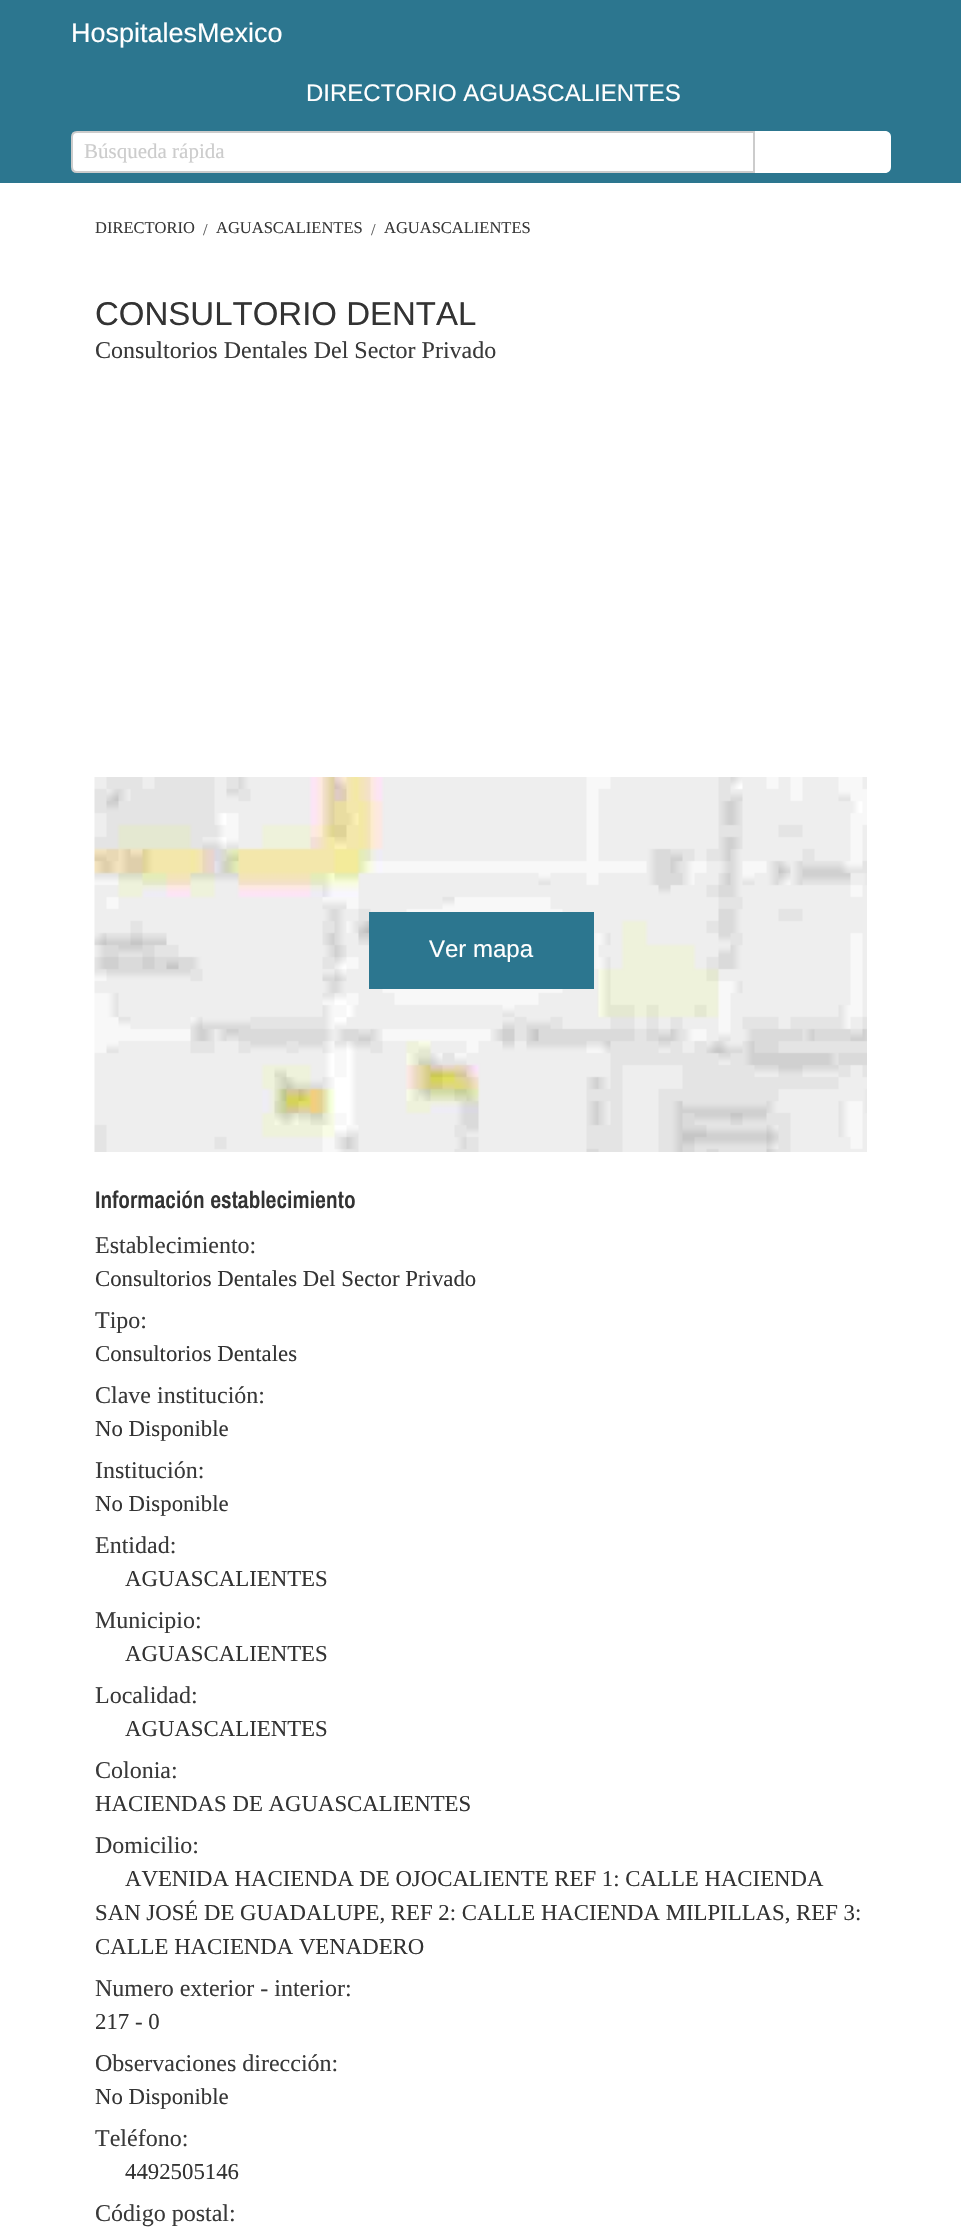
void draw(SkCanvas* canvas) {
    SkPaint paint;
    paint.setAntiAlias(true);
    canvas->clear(0xFFFFFFFF);
    paint.setColor(0xFF2C768F);
    canvas->drawRect(SkRect::MakeXYWH(0, 0, 961, 183), paint);
    SkFont font1(fontMgr->matchFamilyStyle("Liberation Sans", SkFontStyle::Normal()), 27);
    font1.setSubpixel(true);
    paint.setColor(0xFFFFFFFF);
    canvas->drawString("HospitalesMexico", 71, 42, font1, paint);
    SkFont font2(fontMgr->matchFamilyStyle("Liberation Sans", SkFontStyle::Normal()), 24);
    font2.setSubpixel(true);
    canvas->drawString("DIRECTORIO AGUASCALIENTES", 306, 101, font2, paint);
    canvas->drawPath(SkPathBuilder().moveTo(77, 132).lineTo(754, 132).lineTo(754, 172).lineTo(77, 172).cubicTo(74, 172, 72, 170, 72, 167).lineTo(72, 137).cubicTo(72, 134, 74, 132, 77, 132).close().detach(), paint);
    paint.setStyle(SkPaint::kStroke_Style);
    paint.setStrokeWidth(2);
    paint.setColor(0xFFCCCCCC);
    canvas->drawPath(SkPathBuilder().moveTo(77, 132).lineTo(754, 132).lineTo(754, 172).lineTo(77, 172).cubicTo(74, 172, 72, 170, 72, 167).lineTo(72, 137).cubicTo(72, 134, 74, 132, 77, 132).close().detach(), paint);
    SkFont font3(fontMgr->matchFamilyStyle("Liberation Serif", SkFontStyle::Normal()), 21);
    font3.setSubpixel(true);
    paint.setStyle(SkPaint::kFill_Style);
    canvas->drawString("Búsqueda rápida", 84, 158, font3, paint);
    paint.setColor(0xFFFFFFFF);
    canvas->drawPath(SkPathBuilder().moveTo(755, 131).lineTo(885, 131).cubicTo(888.5f, 131, 891, 133.5f, 891, 137).lineTo(891, 167).cubicTo(891, 170.5f, 888.5f, 173, 885, 173).lineTo(755, 173).close().detach(), paint);
    SkFont font4(fontMgr->matchFamilyStyle("Liberation Serif", SkFontStyle::Normal()), 16.5f);
    font4.setSubpixel(true);
    paint.setColor(0xFF393939);
    canvas->drawString("DIRECTORIO", 95, 233, font4, paint);
    paint.setColor(0xFF595959);
    canvas->drawString("/", 203, 235, font4, paint);
    paint.setColor(0xFF393939);
    canvas->drawString("AGUASCALIENTES", 216, 233, font4, paint);
    paint.setColor(0xFF595959);
    canvas->drawString("/", 371, 235, font4, paint);
    paint.setColor(0xFF393939);
    canvas->drawString("AGUASCALIENTES", 384, 233, font4, paint);
    SkFont font5(fontMgr->matchFamilyStyle("Liberation Sans", SkFontStyle::Normal()), 33);
    font5.setSubpixel(true);
    paint.setColor(0xFF333333);
    canvas->drawString("CONSULTORIO DENTAL", 95, 325, font5, paint);
    SkFont font6(fontMgr->matchFamilyStyle("Liberation Serif", SkFontStyle::Normal()), 24);
    font6.setSubpixel(true);
    paint.setColor(0xFF393939);
    canvas->drawString("Consultorios Dentales Del Sector Privado", 95, 358, font6, paint);
    canvas->drawImageRect(SkImages::DeferredFromEncodedData(SkData::MakeFromFileName("img1.png")), SkRect::MakeXYWH(94, 777, 773, 375), SkSamplingOptions());
    paint.setColor(0xFF2C768F);
    canvas->drawRect(SkRect::MakeXYWH(369, 912, 225, 77), paint);
    paint.setColor(0xFFFFFFFF);
    canvas->drawString("Ver mapa", 429, 957, font2, paint);
    SkFont font7(fontMgr->matchFamilyStyle("Archivo Narrow", SkFontStyle(600, SkFontStyle::kNormal_Width, SkFontStyle::kUpright_Slant)), 24);
    font7.setSubpixel(true);
    paint.setColor(0xFF333333);
    canvas->drawString("Información establecimiento", 95, 1208, font7, paint);
    paint.setColor(0xFF393939);
    canvas->drawString("Establecimiento:", 95, 1253, font6, paint);
    SkFont font8(fontMgr->matchFamilyStyle("Liberation Serif", SkFontStyle::Normal()), 22.8f);
    font8.setSubpixel(true);
    paint.setColor(0xFF333333);
    canvas->drawString("Consultorios Dentales Del Sector Privado", 95, 1286, font8, paint);
    paint.setColor(0xFF393939);
    canvas->drawString("Tipo:", 95, 1328, font6, paint);
    paint.setColor(0xFF333333);
    canvas->drawString("Consultorios Dentales", 95, 1361, font8, paint);
    paint.setColor(0xFF393939);
    canvas->drawString("Clave institución:", 95, 1403, font6, paint);
    paint.setColor(0xFF333333);
    canvas->drawString("No Disponible", 95, 1436, font8, paint);
    paint.setColor(0xFF393939);
    canvas->drawString("Institución:", 95, 1478, font6, paint);
    paint.setColor(0xFF333333);
    canvas->drawString("No Disponible", 95, 1511, font8, paint);
    paint.setColor(0xFF393939);
    canvas->drawString("Entidad:", 95, 1553, font6, paint);
    paint.setColor(0xFF333333);
    canvas->drawString("AGUASCALIENTES", 125, 1586, font8, paint);
    paint.setColor(0xFF393939);
    canvas->drawString("Municipio:", 95, 1628, font6, paint);
    paint.setColor(0xFF333333);
    canvas->drawString("AGUASCALIENTES", 125, 1661, font8, paint);
    paint.setColor(0xFF393939);
    canvas->drawString("Localidad:", 95, 1703, font6, paint);
    paint.setColor(0xFF333333);
    canvas->drawString("AGUASCALIENTES", 125, 1736, font8, paint);
    paint.setColor(0xFF393939);
    canvas->drawString("Colonia:", 95, 1778, font6, paint);
    paint.setColor(0xFF333333);
    canvas->drawString("HACIENDAS DE AGUASCALIENTES", 95, 1811, font8, paint);
    paint.setColor(0xFF393939);
    canvas->drawString("Domicilio:", 95, 1853, font6, paint);
    paint.setColor(0xFF333333);
    canvas->drawString("AVENIDA HACIENDA DE OJOCALIENTE REF 1: CALLE HACIENDA", 125, 1886, font8, paint);
    canvas->drawString("SAN JOSÉ DE GUADALUPE, REF 2: CALLE HACIENDA MILPILLAS, REF 3:", 95, 1920, font8, paint);
    canvas->drawString("CALLE HACIENDA VENADERO", 95, 1954, font8, paint);
    paint.setColor(0xFF393939);
    canvas->drawString("Numero exterior - interior:", 95, 1996, font6, paint);
    paint.setColor(0xFF333333);
    canvas->drawString("217 - 0", 95, 2029, font8, paint);
    paint.setColor(0xFF393939);
    canvas->drawString("Observaciones dirección:", 95, 2071, font6, paint);
    paint.setColor(0xFF333333);
    canvas->drawString("No Disponible", 95, 2104, font8, paint);
    paint.setColor(0xFF393939);
    canvas->drawString("Teléfono:", 95, 2146, font6, paint);
    paint.setColor(0xFF333333);
    canvas->drawString("4492505146", 125, 2179, font8, paint);
    paint.setColor(0xFF393939);
    canvas->drawString("Código postal:", 95, 2221, font6, paint);
}
